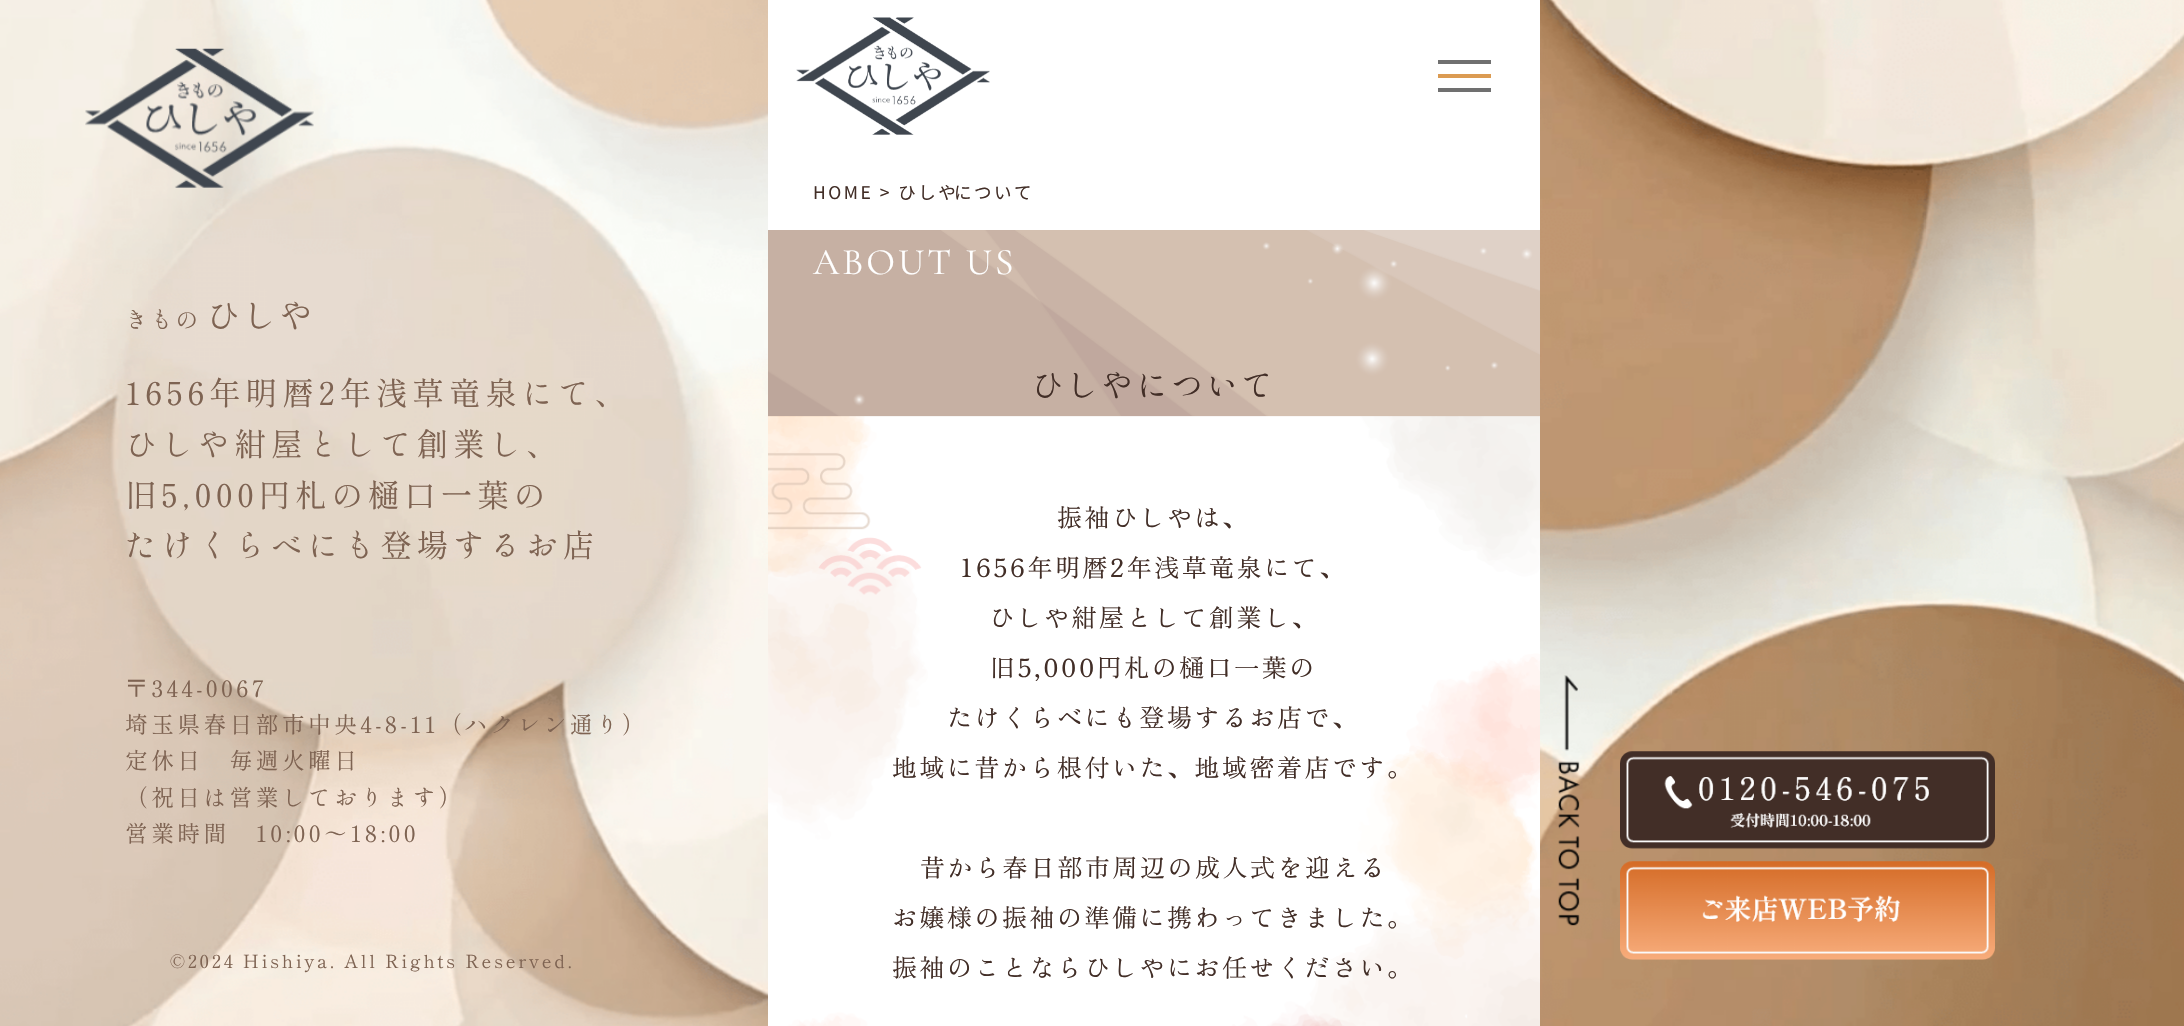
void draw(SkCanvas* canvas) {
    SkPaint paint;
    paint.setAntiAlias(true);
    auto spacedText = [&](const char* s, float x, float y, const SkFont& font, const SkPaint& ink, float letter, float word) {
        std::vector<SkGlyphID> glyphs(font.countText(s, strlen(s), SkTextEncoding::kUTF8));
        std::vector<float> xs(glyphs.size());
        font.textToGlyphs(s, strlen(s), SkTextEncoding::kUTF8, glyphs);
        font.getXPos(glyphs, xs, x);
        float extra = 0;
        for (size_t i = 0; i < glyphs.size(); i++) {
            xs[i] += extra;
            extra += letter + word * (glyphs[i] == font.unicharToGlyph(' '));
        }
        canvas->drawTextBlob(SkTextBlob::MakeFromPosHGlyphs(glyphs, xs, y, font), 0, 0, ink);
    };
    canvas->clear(0xFFFFFFFF);
    canvas->drawImageRect(SkImages::DeferredFromEncodedData(SkData::MakeFromFileName("img1.png")), SkRect::MakeXYWH(0, 0, 2184, 1026), SkSamplingOptions());
    paint.setColor(0x4DFFFFFF);
    canvas->drawRect(SkRect::MakeXYWH(0, 0, 768, 1026), paint);
    canvas->drawImageRect(SkImages::DeferredFromEncodedData(SkData::MakeFromFileName("img2.png")), SkRect::MakeXYWH(85, 48, 229, 140), SkSamplingOptions());
    SkFont font1(fontMgr->matchFamilyStyle("Shippori Mincho", SkFontStyle::Normal()), 22.75f);
    font1.setSubpixel(true);
    paint.setColor(0xFF7E6352);
    spacedText("きもの", 125, 328, font1, paint, 2.5f, 0);
    SkFont font2(fontMgr->matchFamilyStyle("Shippori Mincho", SkFontStyle::Normal()), 34);
    font2.setSubpixel(true);
    spacedText("ひしや", 206, 328, font2, paint, 2.5f, 0);
    SkFont font3(fontMgr->matchFamilyStyle("Shippori Mincho", SkFontStyle::Normal()), 31.7f);
    font3.setSubpixel(true);
    spacedText("1656年明暦2年浅草竜泉にて、", 125, 405, font3, paint, 4.75f, 0);
    spacedText("ひしや紺屋として創業し、", 125, 456, font3, paint, 4.75f, 0);
    spacedText("旧5,000円札の樋口一葉の", 125, 507, font3, paint, 4.75f, 0);
    spacedText("たけくらべにも登場するお店", 125, 557, font3, paint, 4.75f, 0);
    spacedText("〒344-0067", 125, 697, font1, paint, 3.4f, 0);
    spacedText("埼玉県春日部市中央4-8-11（ハクレン通り）", 125, 733, font1, paint, 3.4f, 0);
    spacedText("定休日　毎週火曜日", 125, 769, font1, paint, 3.4f, 0);
    spacedText("（祝日は営業しております）", 125, 806, font1, paint, 3.4f, 0);
    spacedText("営業時間　10:00～18:00", 125, 842, font1, paint, 3.4f, 0);
    SkFont font4(fontMgr->matchFamilyStyle("Shippori Mincho", SkFontStyle::Normal()), 18.1f);
    font4.setSubpixel(true);
    spacedText("©2024 Hishiya. All Rights Reserved.", 170, 968, font4, paint, 2.7f, 0);
    paint.setColor(0xFFFFFFFF);
    canvas->drawRect(SkRect::MakeXYWH(768, 0, 772, 1026), paint);
    canvas->drawImageRect(SkImages::DeferredFromEncodedData(SkData::MakeFromFileName("img3.png")), SkRect::MakeXYWH(796, 17, 194, 118), SkSamplingOptions());
    paint.setColor(0xFF707070);
    canvas->drawRect(SkRect::MakeXYWH(1438, 60, 53, 4), paint);
    paint.setColor(0xFFDB9B52);
    canvas->drawRect(SkRect::MakeXYWH(1438, 74, 53, 4), paint);
    paint.setColor(0xFF707070);
    canvas->drawRect(SkRect::MakeXYWH(1438, 88, 53, 4), paint);
    SkFont font5(fontMgr->matchFamilyStyle("Noto Sans JP", SkFontStyle::Normal()), 17.5f);
    font5.setSubpixel(true);
    paint.setColor(0xFF422E27);
    spacedText("HOME > ひしや", 813, 199, font5, paint, 2.5f, 0);
    spacedText("について", 954, 199, font5, paint, 2.5f, 0);
    canvas->drawImageRect(SkImages::DeferredFromEncodedData(SkData::MakeFromFileName("img4.png")), SkRect::MakeXYWH(768, 230, 772, 187), SkSamplingOptions());
    SkFont font6(fontMgr->matchFamilyStyle("Cormorant Garamond", SkFontStyle::Normal()), 37.5f);
    font6.setSubpixel(true);
    paint.setColor(0xFFFFFFFF);
    spacedText("ABOUT US", 813, 274, font6, paint, 3, 0);
    SkFont font7(fontMgr->matchFamilyStyle("Shippori Mincho", SkFontStyle::Normal()), 32.5f);
    font7.setSubpixel(true);
    paint.setColor(0xFF422E27);
    spacedText("ひしやについて", 1031, 397, font7, paint, 2.5f, 0);
    canvas->drawImageRect(SkImages::DeferredFromEncodedData(SkData::MakeFromFileName("img5.png")), SkRect::MakeXYWH(768, 416, 772, 610), SkSamplingOptions());
    SkFont font8(fontMgr->matchFamilyStyle("Zen Old Mincho", SkFontStyle::Normal()), 25);
    font8.setSubpixel(true);
    spacedText("振袖ひしやは、", 1057, 527, font8, paint, 2.5f, 0);
    spacedText("1656年明暦2年浅草竜泉にて、", 960, 577, font8, paint, 2.5f, 0);
    spacedText("ひしや紺屋として創業し、", 989, 627, font8, paint, 2.5f, 0);
    spacedText("旧5,000円札の樋口一葉の", 990, 677, font8, paint, 2.5f, 0);
    spacedText("たけくらべにも登場するお店で、", 947, 727, font8, paint, 2.5f, 0);
    spacedText("地域に昔から根付いた、地域密着店です。", 892, 777, font8, paint, 2.5f, 0);
    spacedText("昔から春日部市周辺の成人式を迎える", 920, 877, font8, paint, 2.5f, 0);
    spacedText("お嬢様の振袖の準備に携わってきました。", 892, 927, font8, paint, 2.5f, 0);
    spacedText("振袖のことならひしやにお任せください。", 892, 977, font8, paint, 2.5f, 0);
    canvas->drawImageRect(SkImages::DeferredFromEncodedData(SkData::MakeFromFileName("img6.png")), SkRect::MakeXYWH(1558, 675, 22, 251), SkSamplingOptions());
    canvas->drawImageRect(SkImages::DeferredFromEncodedData(SkData::MakeFromFileName("img7.png")), SkRect::MakeXYWH(1620, 751, 375, 98), SkSamplingOptions());
    canvas->drawImageRect(SkImages::DeferredFromEncodedData(SkData::MakeFromFileName("img8.png")), SkRect::MakeXYWH(1620, 861, 375, 99), SkSamplingOptions());
}
